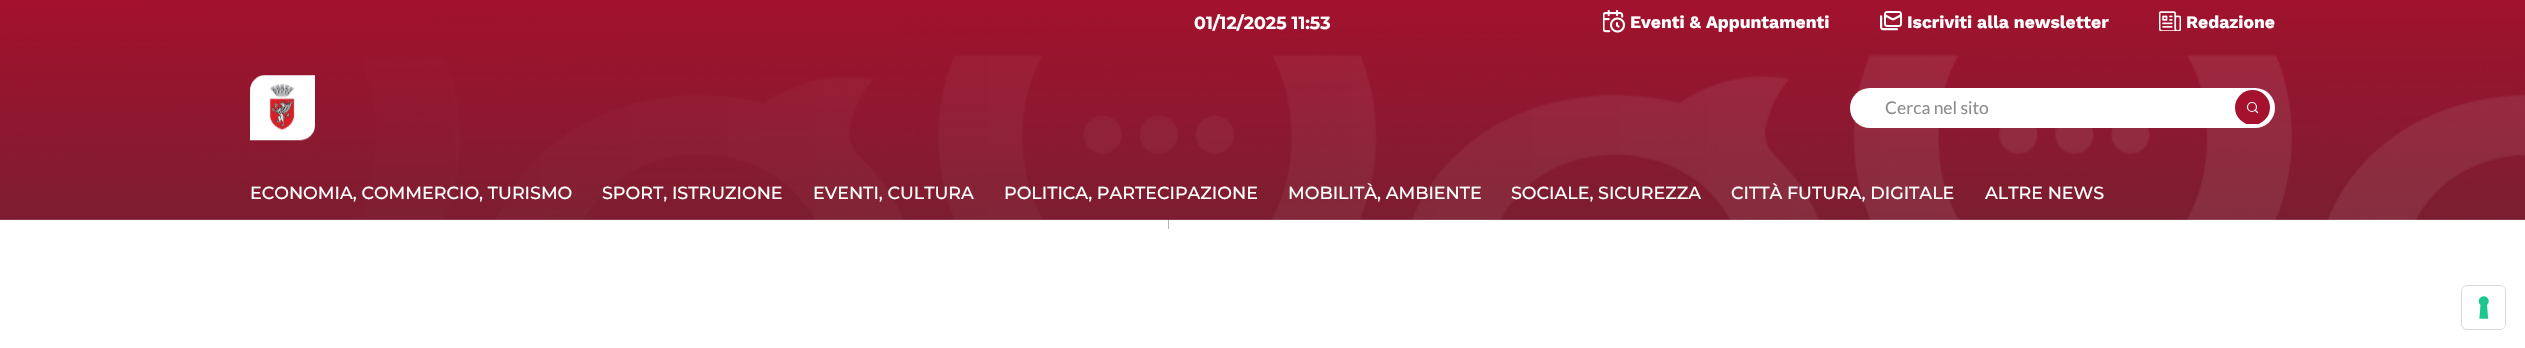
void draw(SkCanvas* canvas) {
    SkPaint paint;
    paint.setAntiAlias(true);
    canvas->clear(0xFFFFFFFF);
    paint.setColor(0xFFB3B3B3);
    canvas->drawRect(SkRect::MakeXYWH(1168, 219, 1, 10), paint);
    canvas->drawImageRect(SkImages::DeferredFromEncodedData(SkData::MakeFromFileName("img1.png")), SkRect::MakeXYWH(0, 0, 2525, 220), SkSamplingOptions());
    SkFont font1(fontMgr->matchFamilyStyle("Montserrat", SkFontStyle::Bold()), 17.5f);
    font1.setSubpixel(true);
    paint.setColor(0xFFFFFFFF);
    canvas->drawString("01/12/2025 11:53", 1194, 29, font1, paint);
    canvas->drawImageRect(SkImages::DeferredFromEncodedData(SkData::MakeFromFileName("img2.png")), SkRect::MakeXYWH(1603, 10, 22, 23), SkSamplingOptions());
    SkFont font2(fontMgr->matchFamilyStyle("Work Sans", SkFontStyle::Bold()), 17.5f);
    font2.setSubpixel(true);
    canvas->drawString("Eventi & Appuntamenti", 1630, 28, font2, paint);
    canvas->drawImageRect(SkImages::DeferredFromEncodedData(SkData::MakeFromFileName("img3.png")), SkRect::MakeXYWH(1880, 11, 22, 20), SkSamplingOptions());
    canvas->drawString("Iscriviti alla newsletter", 1907, 28, font2, paint);
    canvas->drawImageRect(SkImages::DeferredFromEncodedData(SkData::MakeFromFileName("img4.png")), SkRect::MakeXYWH(2159, 11, 22, 20), SkSamplingOptions());
    canvas->drawString("Redazione", 2186, 28, font2, paint);
    canvas->drawImageRect(SkImages::DeferredFromEncodedData(SkData::MakeFromFileName("img5.png")), SkRect::MakeXYWH(250, 75, 65, 66), SkSamplingOptions());
    canvas->drawRoundRect(SkRect::MakeXYWH(1850, 88, 425, 40), 20, 20, paint);
    SkFont font3(fontMgr->matchFamilyStyle("Lato", SkFontStyle::Normal()), 17.5f);
    font3.setSubpixel(true);
    paint.setColor(0xFF8C8C8C);
    canvas->drawString("Cerca nel sito", 1885, 114, font3, paint);
    canvas->save();
    canvas->clipRect(SkRect::MakeXYWH(2235, 90, 35, 34));
    paint.setColor(0xFFA6112E);
    canvas->drawCircle(2252.5f, 107.5f, 17.5f, paint);
    canvas->restore();
    paint.setStyle(SkPaint::kStroke_Style);
    paint.setStrokeWidth(1.2f);
    paint.setColor(0xFFFFFFFF);
    canvas->drawCircle(2252, 107, 4.5f, paint);
    paint.setStrokeCap(SkPaint::kRound_Cap);
    paint.setStrokeJoin(SkPaint::kRound_Join);
    canvas->drawPath(SkPathBuilder().moveTo(2257.5f, 112.5f).lineTo(2255, 110).detach(), paint);
    SkFont font4(fontMgr->matchFamilyStyle("Montserrat", SkFontStyle(500, SkFontStyle::kNormal_Width, SkFontStyle::kUpright_Slant)), 17.5f);
    font4.setSubpixel(true);
    paint.setStyle(SkPaint::kFill_Style);
    canvas->drawString("ECONOMIA, COMMERCIO, TURISMO", 250, 199, font4, paint);
    canvas->drawString("SPORT, ISTRUZIONE", 602, 199, font4, paint);
    canvas->drawString("EVENTI, CULTURA", 813, 199, font4, paint);
    canvas->drawString("POLITICA, PARTECIPAZIONE", 1004, 199, font4, paint);
    canvas->drawString("MOBILITÀ, AMBIENTE", 1288, 199, font4, paint);
    canvas->drawString("SOCIALE, SICUREZZA", 1511, 199, font4, paint);
    canvas->drawString("CITTÀ FUTURA, DIGITALE", 1731, 199, font4, paint);
    canvas->drawString("ALTRE NEWS", 1985, 199, font4, paint);
    paint.setStyle(SkPaint::kStroke_Style);
    paint.setStrokeWidth(1);
    paint.setStrokeCap(SkPaint::kButt_Cap);
    paint.setStrokeJoin(SkPaint::kMiter_Join);
    paint.setColor(0xFFD9D9D9);
    canvas->drawRoundRect(SkRect::MakeXYWH(2461.5f, 285.5f, 44, 44), 5.5f, 5.5f, paint);
    paint.setStyle(SkPaint::kFill_Style);
    paint.setColor(0xFFFFFFFF);
    canvas->drawRoundRect(SkRect::MakeXYWH(2463, 286, 42, 43), 5, 5, paint);
    canvas->drawImageRect(SkImages::DeferredFromEncodedData(SkData::MakeFromFileName("img6.png")), SkRect::MakeXYWH(2478, 296, 11, 23), SkSamplingOptions());
}
